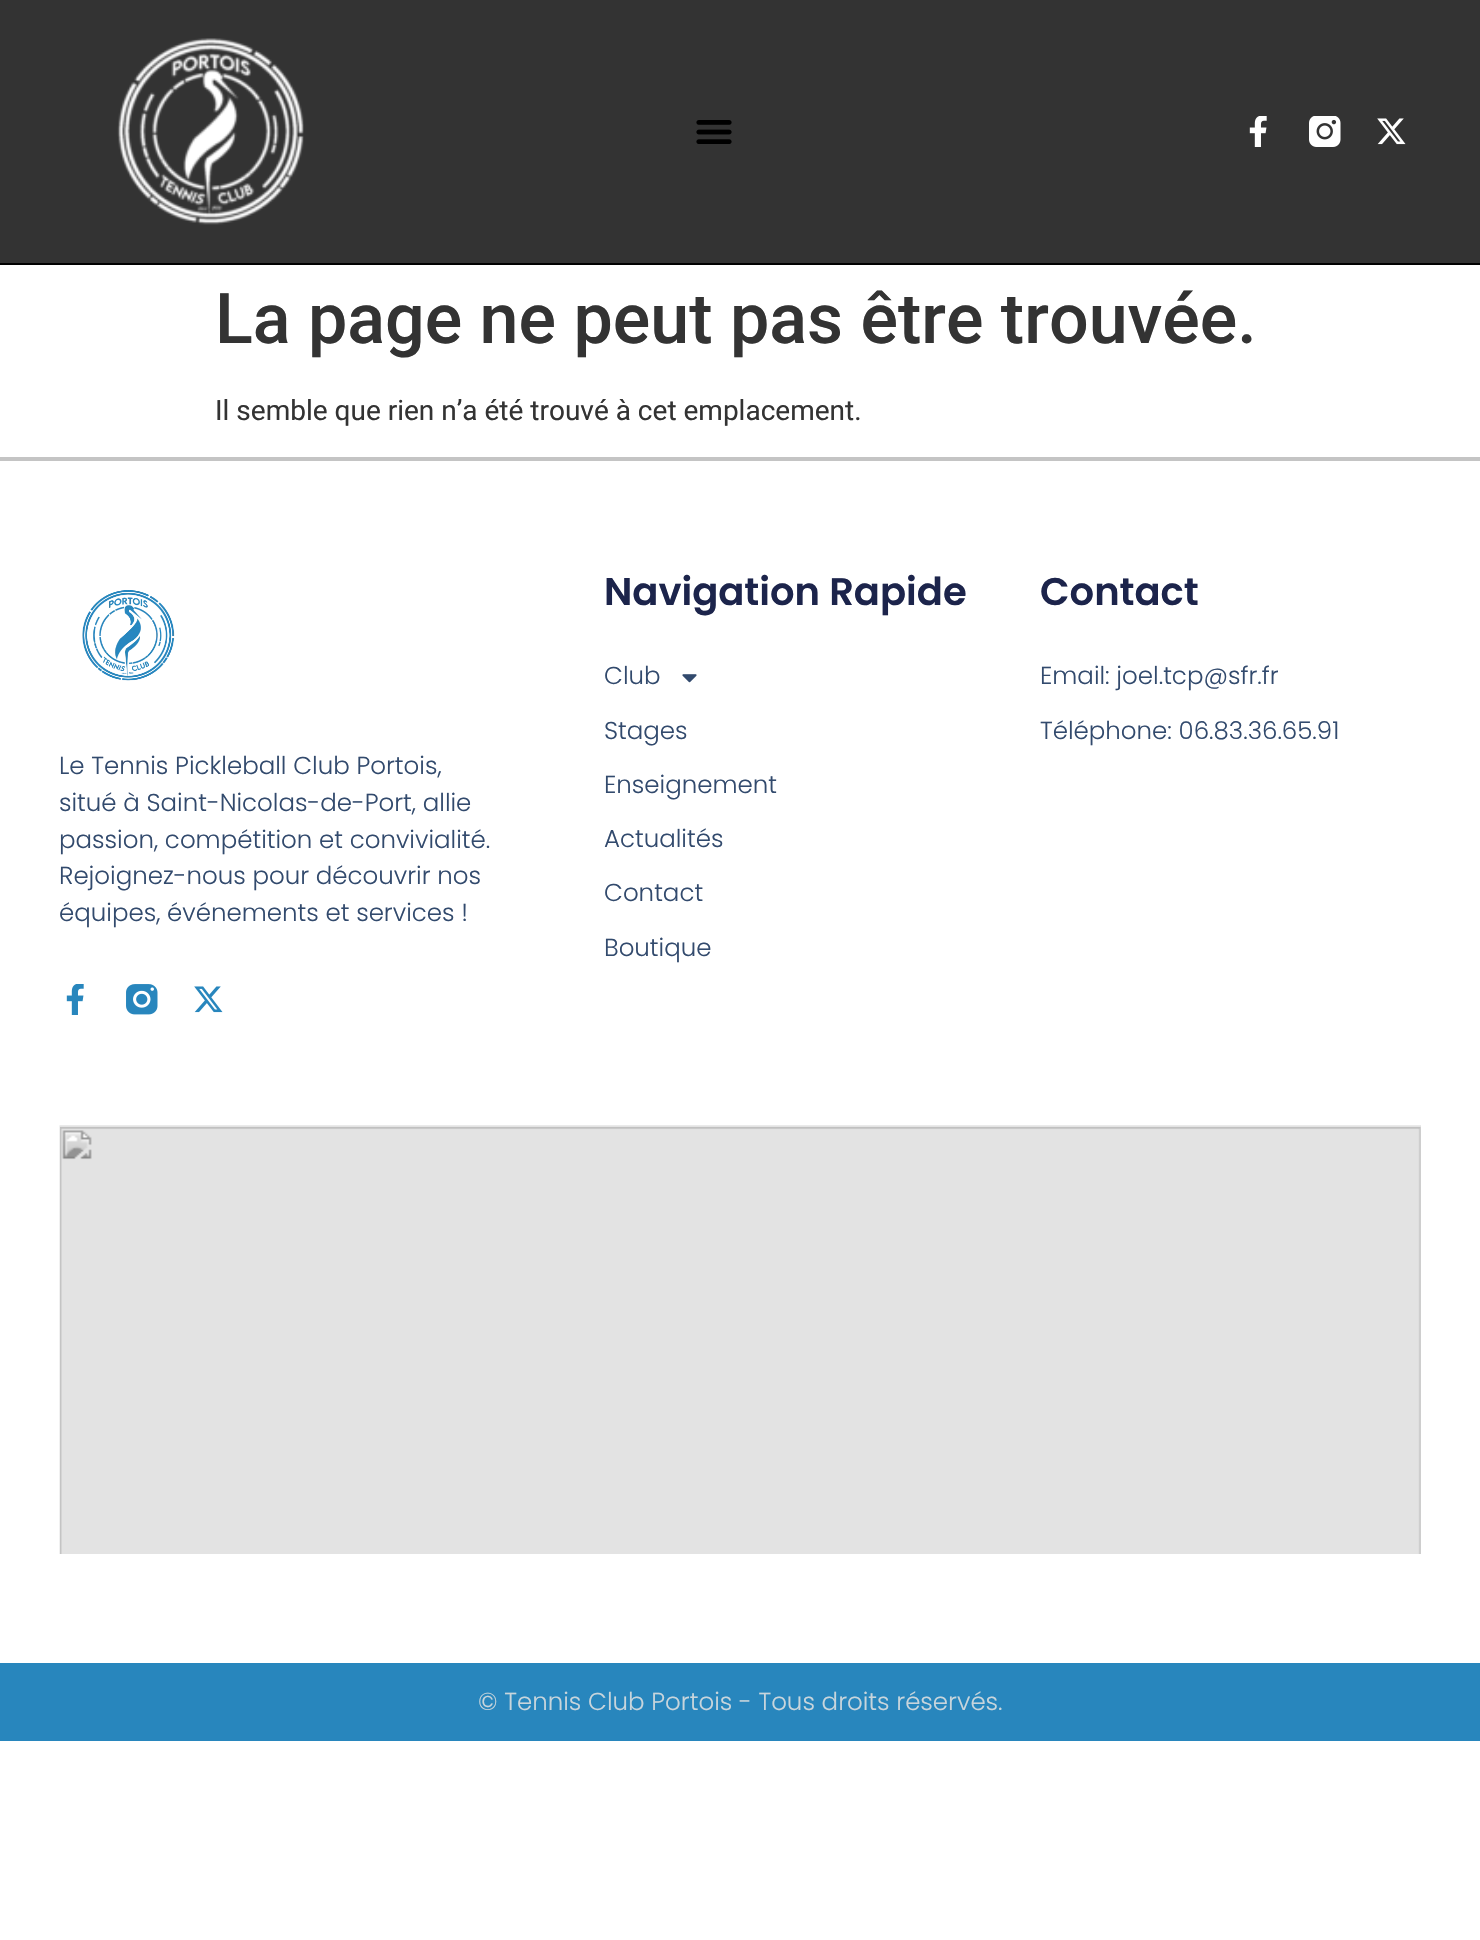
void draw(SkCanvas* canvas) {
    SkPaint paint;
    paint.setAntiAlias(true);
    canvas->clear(0xFFFFFFFF);
    paint.setColor(0xFF333333);
    canvas->drawRect(SkRect::MakeXYWH(0, 0, 1480, 263), paint);
    paint.setColor(0xFF000000);
    canvas->drawRect(SkRect::MakeXYWH(0, 263, 1480, 2), paint);
    canvas->drawImageRect(SkImages::DeferredFromEncodedData(SkData::MakeFromFileName("img1.png")), SkRect::MakeXYWH(117, 38, 187, 187), SkSamplingOptions());
    canvas->drawImageRect(SkImages::DeferredFromEncodedData(SkData::MakeFromFileName("img2.png")), SkRect::MakeXYWH(696, 120, 36, 24), SkSamplingOptions());
    canvas->drawImageRect(SkImages::DeferredFromEncodedData(SkData::MakeFromFileName("img3.png")), SkRect::MakeXYWH(1249, 116, 18, 31), SkSamplingOptions());
    canvas->drawImageRect(SkImages::DeferredFromEncodedData(SkData::MakeFromFileName("img4.png")), SkRect::MakeXYWH(1309, 116, 32, 31), SkSamplingOptions());
    canvas->drawImageRect(SkImages::DeferredFromEncodedData(SkData::MakeFromFileName("img5.png")), SkRect::MakeXYWH(1377, 118, 29, 27), SkSamplingOptions());
    SkFont font1(fontMgr->matchFamilyStyle("Roboto", SkFontStyle(500, SkFontStyle::kNormal_Width, SkFontStyle::kUpright_Slant)), 70);
    font1.setSubpixel(true);
    paint.setColor(0xFF333333);
    canvas->drawString("La page ne peut pas être trouvée.", 215, 343, font1, paint);
    SkFont font2(fontMgr->matchFamilyStyle("Roboto", SkFontStyle::Normal()), 28);
    font2.setSubpixel(true);
    canvas->drawString("Il semble que rien n’a été trouvé à cet emplacement.", 215, 420, font2, paint);
    paint.setColor(0xFFC4C4C4);
    canvas->drawRect(SkRect::MakeXYWH(0, 457, 1480, 4), paint);
    SkFont font3(fontMgr->matchFamilyStyle("Poppins", SkFontStyle(600, SkFontStyle::kNormal_Width, SkFontStyle::kUpright_Slant)), 38.5f);
    font3.setSubpixel(true);
    paint.setColor(0xFF1C244B);
    canvas->drawString("Navigation Rapide", 604, 605, font3, paint);
    SkFont font4(fontMgr->matchFamilyStyle("Poppins", SkFontStyle(300, SkFontStyle::kNormal_Width, SkFontStyle::kUpright_Slant)), 24.5f);
    font4.setSubpixel(true);
    paint.setColor(0xFF324A6D);
    canvas->drawString("Club", 604, 684, font4, paint);
    canvas->drawImageRect(SkImages::DeferredFromEncodedData(SkData::MakeFromFileName("img6.png")), SkRect::MakeXYWH(682, 674, 15, 9), SkSamplingOptions());
    canvas->drawString("Stages", 604, 739, font4, paint);
    canvas->drawString("Enseignement", 604, 793, font4, paint);
    canvas->drawString("Actualités", 604, 847, font4, paint);
    canvas->drawString("Contact", 604, 901, font4, paint);
    canvas->drawString("Boutique", 604, 956, font4, paint);
    paint.setColor(0xFF1C244B);
    canvas->drawString("Contact", 1040, 605, font3, paint);
    paint.setColor(0xFF324A6D);
    canvas->drawString("Email: joel.tcp@sfr.fr", 1040, 684, font4, paint);
    canvas->drawString("Téléphone: 06.83.36.65.91", 1040, 739, font4, paint);
    canvas->drawImageRect(SkImages::DeferredFromEncodedData(SkData::MakeFromFileName("img7.png")), SkRect::MakeXYWH(82, 590, 93, 91), SkSamplingOptions());
    canvas->drawString("Le Tennis Pickleball Club Portois,", 59, 774, font4, paint);
    canvas->drawString("situé à Saint-Nicolas-de-Port, allie", 59, 811, font4, paint);
    canvas->drawString("passion, compétition et convivialité.", 59, 848, font4, paint);
    canvas->drawString("Rejoignez-nous pour découvrir nos", 59, 884, font4, paint);
    canvas->drawString("équipes, événements et services !", 59, 921, font4, paint);
    canvas->drawImageRect(SkImages::DeferredFromEncodedData(SkData::MakeFromFileName("img8.png")), SkRect::MakeXYWH(66, 984, 18, 31), SkSamplingOptions());
    canvas->drawImageRect(SkImages::DeferredFromEncodedData(SkData::MakeFromFileName("img9.png")), SkRect::MakeXYWH(126, 984, 32, 31), SkSamplingOptions());
    canvas->drawImageRect(SkImages::DeferredFromEncodedData(SkData::MakeFromFileName("img10.png")), SkRect::MakeXYWH(194, 986, 29, 27), SkSamplingOptions());
    canvas->drawImageRect(SkImages::DeferredFromEncodedData(SkData::MakeFromFileName("img11.png")), SkRect::MakeXYWH(59, 1125, 1362, 429), SkSamplingOptions());
    paint.setColor(0xFF2886BD);
    canvas->drawRect(SkRect::MakeXYWH(0, 1663, 1480, 78), paint);
    paint.setColor(0xFFC8D5DC);
    canvas->drawString("© Tennis Club Portois - Tous droits réservés.", 478, 1710, font4, paint);
}
